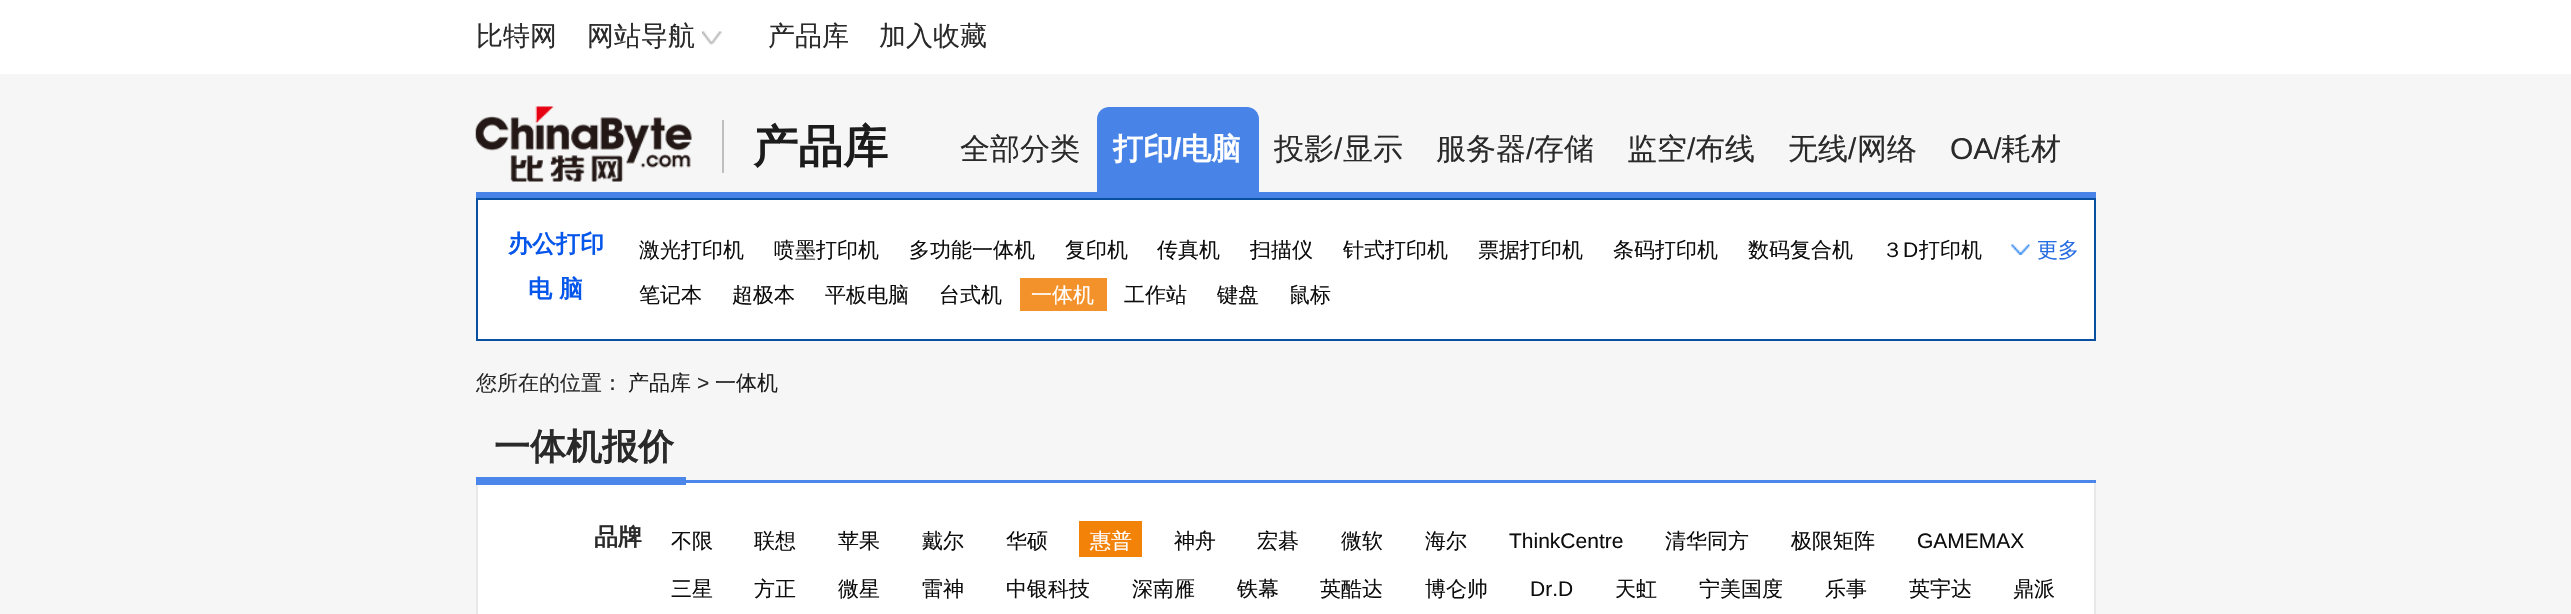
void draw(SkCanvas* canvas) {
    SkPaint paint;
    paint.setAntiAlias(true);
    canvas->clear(0xFFF6F6F6);
    paint.setColor(0xFFFFFFFF);
    canvas->drawRect(SkRect::MakeXYWH(0, 0, 2571, 74), paint);
    SkFont font1(fontMgr->matchFamilyStyle("WenQuanYi Zen Hei", SkFontStyle(500, SkFontStyle::kNormal_Width, SkFontStyle::kUpright_Slant)), 27);
    font1.setSubpixel(true);
    paint.setColor(0xFF2A2A2A);
    canvas->drawString("比特网", 476, 45, font1, paint);
    canvas->drawString("网站导航", 587, 45, font1, paint);
    canvas->drawImageRect(SkImages::DeferredFromEncodedData(SkData::MakeFromFileName("img1.png")), SkRect::MakeXYWH(702, 31, 20, 14), SkSamplingOptions());
    canvas->drawString("产品库", 768, 45, font1, paint);
    canvas->drawString("加入收藏", 879, 45, font1, paint);
    paint.setColor(0xFF4884E8);
    canvas->drawRect(SkRect::MakeXYWH(476, 192, 1620, 6), paint);
    canvas->drawImageRect(SkImages::DeferredFromEncodedData(SkData::MakeFromFileName("img2.png")), SkRect::MakeXYWH(475, 106, 217, 76), SkSamplingOptions());
    paint.setColor(0xFFBFBFBF);
    canvas->drawRect(SkRect::MakeXYWH(722, 120, 2, 53), paint);
    SkFont font2(fontMgr->matchFamilyStyle("WenQuanYi Zen Hei", SkFontStyle::Bold()), 45);
    font2.setSubpixel(true);
    paint.setColor(0xFF1C1C1C);
    canvas->drawString("产品库", 753, 162, font2, paint);
    SkFont font3(fontMgr->matchFamilyStyle("WenQuanYi Zen Hei", SkFontStyle(500, SkFontStyle::kNormal_Width, SkFontStyle::kUpright_Slant)), 30);
    font3.setSubpixel(true);
    paint.setColor(0xFF2A2A2A);
    canvas->drawString("全部分类", 960, 159, font3, paint);
    paint.setColor(0xFF4884E8);
    canvas->drawPath(SkPathBuilder().moveTo(1109, 107).lineTo(1247, 107).cubicTo(1253.5f, 107, 1259, 112.5f, 1259, 119).lineTo(1259, 192).lineTo(1097, 192).lineTo(1097, 119).cubicTo(1097, 112.5f, 1102.5f, 107, 1109, 107).close().detach(), paint);
    SkFont font4(fontMgr->matchFamilyStyle("WenQuanYi Zen Hei", SkFontStyle::Bold()), 30);
    font4.setSubpixel(true);
    paint.setColor(0xFFFFFFFF);
    canvas->drawString("打印", 1113, 159, font4, paint);
    SkFont font5(fontMgr->matchFamilyStyle("Liberation Sans", SkFontStyle::Bold()), 30);
    font5.setSubpixel(true);
    canvas->drawString("/", 1173, 159, font5, paint);
    canvas->drawString("电脑", 1181, 159, font4, paint);
    paint.setColor(0xFF2A2A2A);
    canvas->drawString("投影", 1274, 159, font3, paint);
    SkFont font6(fontMgr->matchFamilyStyle("Liberation Sans", SkFontStyle::Normal()), 30);
    font6.setSubpixel(true);
    canvas->drawString("/", 1334, 159, font6, paint);
    canvas->drawString("显示", 1343, 159, font3, paint);
    canvas->drawString("服务器", 1436, 159, font3, paint);
    canvas->drawString("/", 1526, 159, font6, paint);
    canvas->drawString("存储", 1534, 159, font3, paint);
    canvas->drawString("监空", 1627, 159, font3, paint);
    canvas->drawString("/", 1687, 159, font6, paint);
    canvas->drawString("布线", 1695, 159, font3, paint);
    canvas->drawString("无线", 1788, 159, font3, paint);
    canvas->drawString("/", 1848, 159, font6, paint);
    canvas->drawString("网络", 1857, 159, font3, paint);
    canvas->drawString("OA/", 1950, 159, font6, paint);
    canvas->drawString("耗材", 2001, 159, font3, paint);
    paint.setColor(0xFFFFFFFF);
    canvas->drawRect(SkRect::MakeXYWH(477, 199, 1618, 141), paint);
    paint.setStyle(SkPaint::kStroke_Style);
    paint.setStrokeWidth(2);
    paint.setColor(0xFF0A50A1);
    canvas->drawRect(SkRect::MakeXYWH(477, 199, 1618, 141), paint);
    SkFont font7(fontMgr->matchFamilyStyle("WenQuanYi Zen Hei", SkFontStyle::Bold()), 24);
    font7.setSubpixel(true);
    paint.setStyle(SkPaint::kFill_Style);
    paint.setColor(0xFF0556EA);
    canvas->drawString("办公打印", 508, 252, font7, paint);
    SkFont font8(fontMgr->matchFamilyStyle("WenQuanYi Zen Hei", SkFontStyle(500, SkFontStyle::kNormal_Width, SkFontStyle::kUpright_Slant)), 21);
    font8.setSubpixel(true);
    paint.setColor(0xFF0E0E0E);
    canvas->drawString("激光打印机", 639, 257, font8, paint);
    canvas->drawString("喷墨打印机", 774, 257, font8, paint);
    canvas->drawString("多功能一体机", 909, 257, font8, paint);
    canvas->drawString("复印机", 1065, 257, font8, paint);
    canvas->drawString("传真机", 1157, 257, font8, paint);
    canvas->drawString("扫描仪", 1250, 257, font8, paint);
    canvas->drawString("针式打印机", 1343, 257, font8, paint);
    canvas->drawString("票据打印机", 1478, 257, font8, paint);
    canvas->drawString("条码打印机", 1613, 257, font8, paint);
    canvas->drawString("数码复合机", 1748, 257, font8, paint);
    canvas->drawString("３", 1882, 257, font8, paint);
    SkFont font9(fontMgr->matchFamilyStyle("Liberation Sans", SkFontStyle::Normal()), 21);
    font9.setSubpixel(true);
    canvas->drawString("D", 1903, 257, font9, paint);
    canvas->drawString("打印机", 1919, 257, font8, paint);
    canvas->drawImageRect(SkImages::DeferredFromEncodedData(SkData::MakeFromFileName("img3.png")), SkRect::MakeXYWH(2011, 244, 19, 11), SkSamplingOptions());
    paint.setColor(0xFF276DE1);
    canvas->drawString("更多", 2037, 257, font8, paint);
    paint.setColor(0xFF0556EA);
    canvas->drawString("电", 528, 297, font7, paint);
    canvas->drawString("脑", 559, 297, font7, paint);
    paint.setColor(0xFF0E0E0E);
    canvas->drawString("笔记本", 639, 302, font8, paint);
    canvas->drawString("超极本", 732, 302, font8, paint);
    canvas->drawString("平板电脑", 825, 302, font8, paint);
    canvas->drawString("台式机", 939, 302, font8, paint);
    paint.setColor(0xFFF3922B);
    canvas->drawRect(SkRect::MakeXYWH(1020, 278, 87, 33), paint);
    paint.setColor(0xFFFFFFFF);
    canvas->drawString("一体机", 1031, 302, font8, paint);
    paint.setColor(0xFF0E0E0E);
    canvas->drawString("工作站", 1124, 302, font8, paint);
    canvas->drawString("键盘", 1217, 302, font8, paint);
    canvas->drawString("鼠标", 1289, 302, font8, paint);
    paint.setColor(0xFF2A2A2A);
    canvas->drawString("您所在的位置：", 476, 390, font8, paint);
    paint.setColor(0xFF1C1C1C);
    canvas->drawString("产品库", 628, 390, font8, paint);
    paint.setColor(0xFF2A2A2A);
    canvas->drawString(">", 697, 390, font9, paint);
    paint.setColor(0xFF1C1C1C);
    canvas->drawString("一体机", 715, 390, font8, paint);
    paint.setColor(0xFF4B87EA);
    canvas->drawRect(SkRect::MakeXYWH(686, 480, 1410, 3), paint);
    SkFont font10(fontMgr->matchFamilyStyle("WenQuanYi Zen Hei", SkFontStyle::Bold()), 36);
    font10.setSubpixel(true);
    paint.setColor(0xFF2A2A2A);
    canvas->drawString("一体机报价", 494, 459, font10, paint);
    paint.setColor(0xFFFFFFFF);
    canvas->drawRect(SkRect::MakeXYWH(478, 483, 1616, 131), paint);
    paint.setColor(0xFFE8E8E8);
    canvas->drawRect(SkRect::MakeXYWH(476, 483, 2, 131), paint);
    paint.setColor(0xFF4B87EA);
    canvas->drawRect(SkRect::MakeXYWH(476, 477, 210, 8), paint);
    paint.setColor(0xFFE8E8E8);
    canvas->drawRect(SkRect::MakeXYWH(2094, 483, 2, 131), paint);
    paint.setColor(0xFF2A2A2A);
    canvas->drawString("品牌", 594, 545, font7, paint);
    paint.setColor(0xFF0E0E0E);
    canvas->drawString("不限", 671, 548, font8, paint);
    canvas->drawString("联想", 754, 548, font8, paint);
    canvas->drawString("苹果", 838, 548, font8, paint);
    canvas->drawString("戴尔", 922, 548, font8, paint);
    canvas->drawString("华硕", 1006, 548, font8, paint);
    paint.setColor(0xFFF28208);
    canvas->drawRect(SkRect::MakeXYWH(1079, 521, 63, 36), paint);
    paint.setColor(0xFFFFFFFF);
    canvas->drawString("惠普", 1090, 548, font8, paint);
    paint.setColor(0xFF0E0E0E);
    canvas->drawString("神舟", 1174, 548, font8, paint);
    canvas->drawString("宏碁", 1257, 548, font8, paint);
    canvas->drawString("微软", 1341, 548, font8, paint);
    canvas->drawString("海尔", 1425, 548, font8, paint);
    canvas->drawString("ThinkCentre", 1509, 548, font9, paint);
    canvas->drawString("清华同方", 1665, 548, font8, paint);
    canvas->drawString("极限矩阵", 1791, 548, font8, paint);
    canvas->drawString("GAMEMAX", 1917, 548, font9, paint);
    canvas->drawString("三星", 671, 596, font8, paint);
    canvas->drawString("方正", 754, 596, font8, paint);
    canvas->drawString("微星", 838, 596, font8, paint);
    canvas->drawString("雷神", 922, 596, font8, paint);
    canvas->drawString("中银科技", 1006, 596, font8, paint);
    canvas->drawString("深南雁", 1132, 596, font8, paint);
    canvas->drawString("铁幕", 1237, 596, font8, paint);
    canvas->drawString("英酷达", 1320, 596, font8, paint);
    canvas->drawString("博仑帅", 1425, 596, font8, paint);
    canvas->drawString("Dr.D", 1530, 596, font9, paint);
    canvas->drawString("天虹", 1615, 596, font8, paint);
    canvas->drawString("宁美国度", 1699, 596, font8, paint);
    canvas->drawString("乐事", 1825, 596, font8, paint);
    canvas->drawString("英宇达", 1909, 596, font8, paint);
    canvas->drawString("鼎派", 2013, 596, font8, paint);
}
